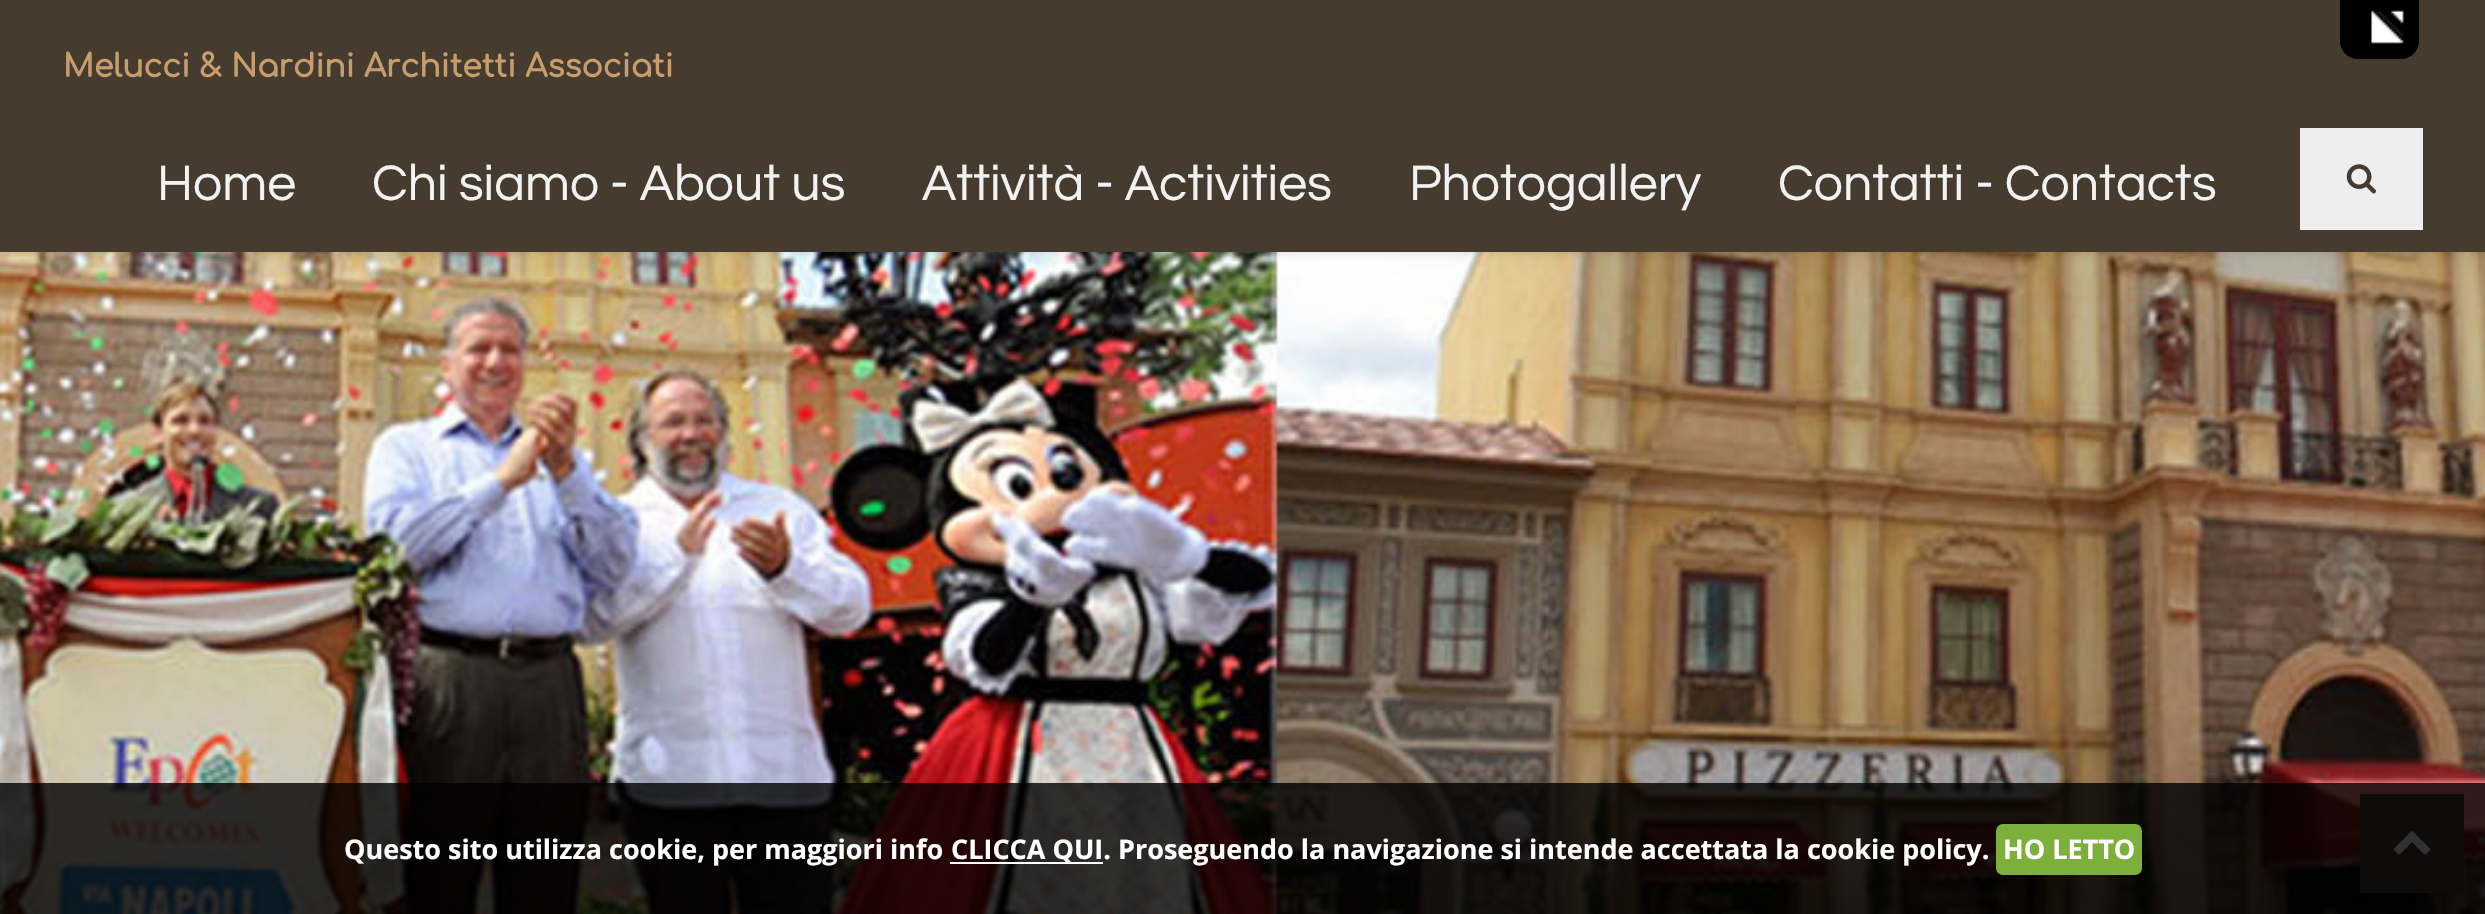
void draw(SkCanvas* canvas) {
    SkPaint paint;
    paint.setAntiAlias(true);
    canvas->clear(0xFFFFFFFF);
    canvas->drawImageRect(SkImages::DeferredFromEncodedData(SkData::MakeFromFileName("img3.png")), SkRect::MakeXYWH(0, 252, 2485, 662), SkSamplingOptions());
    paint.setColor(0x1A000000);
    paint.setMaskFilter(SkMaskFilter::MakeBlur(kNormal_SkBlurStyle, 4.5f));
    canvas->drawRect(SkRect::MakeXYWH(0, 2, 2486, 252), paint);
    paint.setMaskFilter(nullptr);
    paint.setColor(0xFF453B2F);
    canvas->drawRect(SkRect::MakeXYWH(0, 0, 2485, 252), paint);
    paint.setColor(0xFF000000);
    canvas->drawPath(SkPathBuilder().moveTo(2340, 0).lineTo(2419, 0).lineTo(2419, 41).cubicTo(2419, 51, 2411, 59, 2401, 59).lineTo(2358, 59).cubicTo(2348, 59, 2340, 51, 2340, 41).close().detach(), paint);
    canvas->drawImageRect(SkImages::DeferredFromEncodedData(SkData::MakeFromFileName("img1.png")), SkRect::MakeXYWH(2371, 10, 33, 34), SkSamplingOptions());
    SkFont font1(fontMgr->matchFamilyStyle("Comfortaa", SkFontStyle::Bold()), 31.5f);
    font1.setSubpixel(true);
    paint.setColor(0xFFC79D6D);
    canvas->drawString("Melucci & Nardini Architetti Associati", 63, 77, font1, paint);
    SkFont font2(fontMgr->matchFamilyStyle("Questrial", SkFontStyle::Normal()), 51.75f);
    font2.setSubpixel(true);
    paint.setColor(0xFFF2F2F2);
    canvas->drawString("Home", 157, 200, font2, paint);
    canvas->drawString("Chi siamo - About us", 372, 200, font2, paint);
    canvas->drawString("Attività - Activities", 922, 200, font2, paint);
    canvas->drawString("Photogallery", 1409, 200, font2, paint);
    canvas->drawString("Contatti - Contacts", 1778, 200, font2, paint);
    paint.setColor(0xFFEEEEEE);
    canvas->drawRect(SkRect::MakeXYWH(2300, 128, 123, 102), paint);
    canvas->drawImageRect(SkImages::DeferredFromEncodedData(SkData::MakeFromFileName("img2.png")), SkRect::MakeXYWH(2346, 164, 30, 30), SkSamplingOptions());
    paint.setColor(0xFF453B2F);
    canvas->drawRect(SkRect::MakeXYWH(2360, 794, 104, 99), paint);
    canvas->drawImageRect(SkImages::DeferredFromEncodedData(SkData::MakeFromFileName("img4.png")), SkRect::MakeXYWH(2393, 831, 38, 24), SkSamplingOptions());
    paint.setColor(0xCC000000);
    canvas->drawRect(SkRect::MakeXYWH(0, 783, 2485, 131), paint);
    SkFont font3(fontMgr->matchFamilyStyle("Open Sans", SkFontStyle::Bold()), 27);
    font3.setSubpixel(true);
    paint.setColor(0xFFFFFFFF);
    canvas->drawString("Questo sito utilizza cookie, per maggiori info", 344, 859, font3, paint);
    canvas->drawRect(SkRect::MakeXYWH(950, 862, 153, 2), paint);
    canvas->drawString("CLICCA QUI. Proseguendo la navigazione si intende accettata la cookie policy.", 951, 859, font3, paint);
    paint.setColor(0xFF7DAF3B);
    canvas->drawRoundRect(SkRect::MakeXYWH(1996, 824, 146, 51), 7, 7, paint);
    paint.setColor(0xFFFFFFFF);
    canvas->drawString("HO LETTO", 2003, 859, font3, paint);
}
